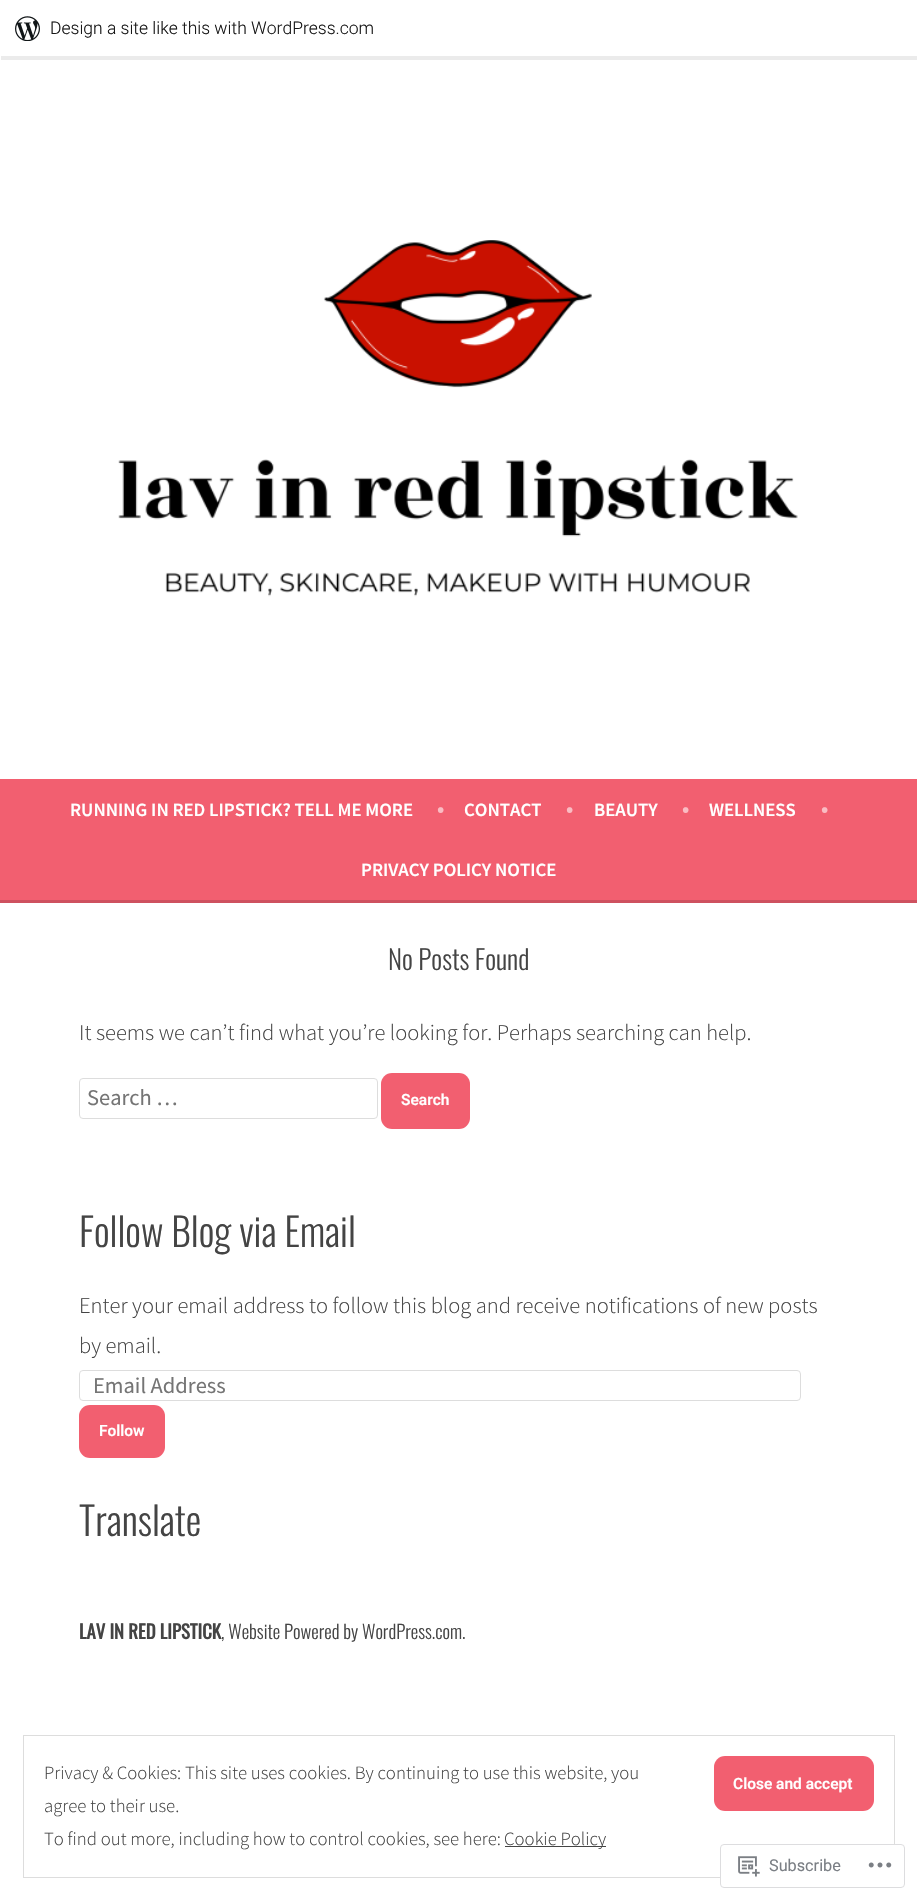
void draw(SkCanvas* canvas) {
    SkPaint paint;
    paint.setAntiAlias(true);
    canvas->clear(0xFFFFFFFF);
    paint.setColor(0x14000000);
    canvas->drawPath(SkPathBuilder().moveTo(1, 56).lineTo(1, 60).lineTo(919, 60).lineTo(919, 4).lineTo(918, 4).lineTo(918, 56).close().detach(), paint);
    canvas->drawImageRect(SkImages::DeferredFromEncodedData(SkData::MakeFromFileName("img1.png")), SkRect::MakeXYWH(15, 16, 25, 25), SkSamplingOptions());
    SkFont font1(fontMgr->matchFamilyStyle("Roboto", SkFontStyle(300, SkFontStyle::kNormal_Width, SkFontStyle::kUpright_Slant)), 17.5f);
    font1.setSubpixel(true);
    paint.setColor(0xFF171717);
    canvas->drawString("Design a site like this with WordPress.com", 50, 34, font1, paint);
    canvas->drawImageRect(SkImages::DeferredFromEncodedData(SkData::MakeFromFileName("img2.png")), SkRect::MakeXYWH(118, 240, 680, 357), SkSamplingOptions());
    paint.setColor(0xFFF25F70);
    canvas->drawRect(SkRect::MakeXYWH(0, 779, 917, 121), paint);
    paint.setColor(0xFFCE515F);
    canvas->drawRect(SkRect::MakeXYWH(0, 900, 917, 3), paint);
    SkFont font2(fontMgr->matchFamilyStyle("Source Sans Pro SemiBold", SkFontStyle(600, SkFontStyle::kNormal_Width, SkFontStyle::kUpright_Slant)), 18.75f);
    font2.setSubpixel(true);
    paint.setColor(0xFFFFFFFF);
    canvas->drawString("RUNNING IN RED LIPSTICK? TELL ME MORE", 70, 816, font2, paint);
    SkFont font3(fontMgr->matchFamilyStyle("Source Sans Pro SemiBold", SkFontStyle(600, SkFontStyle::kNormal_Width, SkFontStyle::kUpright_Slant)), 22.5f);
    font3.setSubpixel(true);
    paint.setColor(0xFFFABCC3);
    canvas->drawString("•", 437, 816, font3, paint);
    paint.setColor(0xFFFFFFFF);
    canvas->drawString("CONTACT", 464, 816, font2, paint);
    paint.setColor(0xFFFABCC3);
    canvas->drawString("•", 566, 816, font3, paint);
    paint.setColor(0xFFFFFFFF);
    canvas->drawString("BEAUTY", 594, 816, font2, paint);
    paint.setColor(0xFFFABCC3);
    canvas->drawString("•", 682, 816, font3, paint);
    paint.setColor(0xFFFFFFFF);
    canvas->drawString("WELLNESS", 709, 816, font2, paint);
    paint.setColor(0xFFFABCC3);
    canvas->drawString("•", 821, 816, font3, paint);
    paint.setColor(0xFFFFFFFF);
    canvas->drawString("PRIVACY POLICY NOTICE", 361, 876, font2, paint);
    SkFont font4(fontMgr->matchFamilyStyle("Oswald", SkFontStyle(300, SkFontStyle::kNormal_Width, SkFontStyle::kUpright_Slant)), 27);
    font4.setSubpixel(true);
    paint.setColor(0xFF444444);
    canvas->drawString("No Posts Found", 388, 970, font4, paint);
    SkFont font5(fontMgr->matchFamilyStyle("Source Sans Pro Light", SkFontStyle(300, SkFontStyle::kNormal_Width, SkFontStyle::kUpright_Slant)), 22.5f);
    font5.setSubpixel(true);
    canvas->drawString("It seems we can’t find what you’re looking for. Perhaps searching can help.", 79, 1040, font5, paint);
    paint.setStyle(SkPaint::kStroke_Style);
    paint.setStrokeWidth(1);
    paint.setColor(0xFFDDDDDD);
    canvas->drawRoundRect(SkRect::MakeXYWH(79.5f, 1078.5f, 298, 40), 3.5f, 3.5f, paint);
    SkFont font6(fontMgr->matchFamilyStyle("Source Sans Pro", SkFontStyle::Normal()), 22.5f);
    font6.setSubpixel(true);
    paint.setStyle(SkPaint::kFill_Style);
    paint.setColor(0xFF757575);
    canvas->drawString("Search …", 87, 1105, font6, paint);
    paint.setColor(0xFFF25F70);
    canvas->drawRoundRect(SkRect::MakeXYWH(381, 1073, 89, 56), 11, 11, paint);
    SkFont font7(fontMgr->matchFamilyStyle("Roboto", SkFontStyle(600, SkFontStyle::kNormal_Width, SkFontStyle::kUpright_Slant)), 15.5f);
    font7.setSubpixel(true);
    paint.setColor(0xFFFFFFFF);
    canvas->drawString("Search", 401, 1105, font7, paint);
    SkFont font8(fontMgr->matchFamilyStyle("Oswald", SkFontStyle(300, SkFontStyle::kNormal_Width, SkFontStyle::kUpright_Slant)), 39);
    font8.setSubpixel(true);
    paint.setColor(0xFF444444);
    canvas->drawString("Follow Blog via Email", 79, 1247, font8, paint);
    canvas->drawString("Enter your email address to follow this blog and receive notifications of new posts", 79, 1313, font5, paint);
    canvas->drawString("by email.", 79, 1353, font5, paint);
    paint.setStyle(SkPaint::kStroke_Style);
    paint.setColor(0xFFDDDDDD);
    canvas->drawRoundRect(SkRect::MakeXYWH(79.5f, 1370.5f, 721, 30), 3.5f, 3.5f, paint);
    paint.setStyle(SkPaint::kFill_Style);
    paint.setColor(0xFF757575);
    canvas->drawString("Email Address", 93, 1393, font6, paint);
    paint.setColor(0xFFF25F70);
    canvas->drawRoundRect(SkRect::MakeXYWH(79, 1405, 86, 53), 11, 11, paint);
    paint.setColor(0xFFFFFFFF);
    canvas->drawString("Follow", 99, 1436, font7, paint);
    paint.setColor(0xFF444444);
    canvas->drawString("Translate", 79, 1536, font8, paint);
    SkFont font9(fontMgr->matchFamilyStyle("Oswald", SkFontStyle::Bold()), 18.75f);
    font9.setSubpixel(true);
    canvas->drawString("LAV IN RED LIPSTICK", 79, 1639, font9, paint);
    SkFont font10(fontMgr->matchFamilyStyle("Oswald", SkFontStyle(300, SkFontStyle::kNormal_Width, SkFontStyle::kUpright_Slant)), 18.75f);
    font10.setSubpixel(true);
    canvas->drawString(", Website Powered by WordPress.com.", 221, 1639, font10, paint);
    paint.setStyle(SkPaint::kStroke_Style);
    paint.setColor(0xFFDDDDDD);
    canvas->drawRect(SkRect::MakeXYWH(23.5f, 1735.5f, 871, 142), paint);
    SkFont font11(fontMgr->matchFamilyStyle("Source Sans Pro Light", SkFontStyle(300, SkFontStyle::kNormal_Width, SkFontStyle::kUpright_Slant)), 18.75f);
    font11.setSubpixel(true);
    paint.setStyle(SkPaint::kFill_Style);
    paint.setColor(0xFF444444);
    canvas->drawString("Privacy & Cookies: This site uses cookies. By continuing to use this website, you", 44, 1779, font11, paint);
    paint.setColor(0xFFF25F70);
    canvas->drawRoundRect(SkRect::MakeXYWH(714, 1756, 160, 55), 11, 11, paint);
    paint.setColor(0xFFFFFFFF);
    canvas->drawString("Close and accept", 733, 1789, font7, paint);
    paint.setColor(0xFF444444);
    canvas->drawString("agree to their use.", 44, 1812, font11, paint);
    canvas->drawString("To find out more, including how to control cookies, see here:", 44, 1845, font11, paint);
    canvas->drawRect(SkRect::MakeXYWH(505, 1846, 101, 1), paint);
    canvas->drawString("Cookie Policy", 504, 1845, font11, paint);
    paint.setColor(0xFAFFFFFF);
    canvas->drawRoundRect(SkRect::MakeXYWH(720.5f, 1844.5f, 184, 43), 3.5f, 3.5f, paint);
    paint.setStyle(SkPaint::kStroke_Style);
    paint.setColor(0xFFDDDDDF);
    canvas->drawRoundRect(SkRect::MakeXYWH(720.5f, 1844.5f, 184, 43), 3.5f, 3.5f, paint);
    canvas->drawImageRect(SkImages::DeferredFromEncodedData(SkData::MakeFromFileName("img3.png")), SkRect::MakeXYWH(738, 1856, 22, 21), SkSamplingOptions());
    SkFont font12(fontMgr->matchFamilyStyle("Roboto", SkFontStyle::Normal()), 16.25f);
    font12.setSubpixel(true);
    paint.setStyle(SkPaint::kFill_Style);
    paint.setColor(0xFF7B7F85);
    canvas->drawString("Subscribe", 769, 1871, font12, paint);
    canvas->drawImageRect(SkImages::DeferredFromEncodedData(SkData::MakeFromFileName("img4.png")), SkRect::MakeXYWH(868, 1862, 24, 6), SkSamplingOptions());
}
